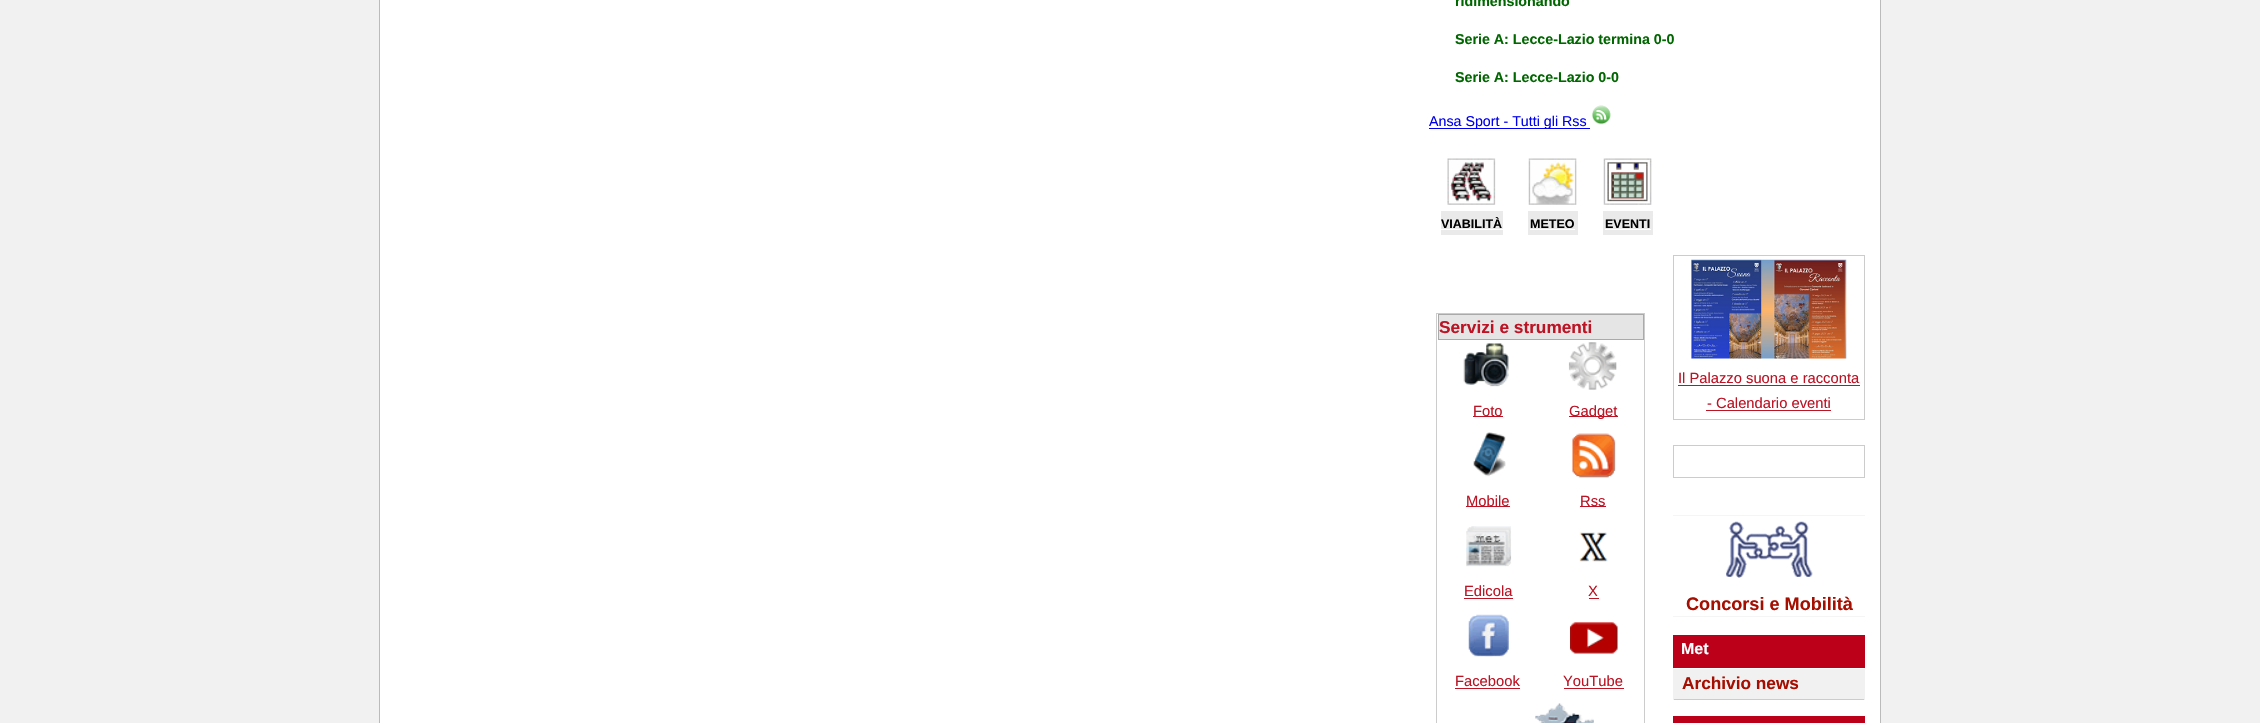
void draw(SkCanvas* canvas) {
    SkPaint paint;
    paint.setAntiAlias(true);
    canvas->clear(0xFFF1F1F1);
    paint.setColor(0xFFFFFFFF);
    canvas->drawRect(SkRect::MakeXYWH(379.5f, -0.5f, 1501, 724), paint);
    paint.setStyle(SkPaint::kStroke_Style);
    paint.setStrokeWidth(1);
    paint.setColor(0xFFBBBBBB);
    canvas->drawRect(SkRect::MakeXYWH(379.5f, -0.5f, 1501, 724), paint);
    SkFont font1(fontMgr->matchFamilyStyle("Liberation Sans", SkFontStyle::Bold()), 14.25f);
    font1.setSubpixel(true);
    paint.setStyle(SkPaint::kFill_Style);
    paint.setColor(0xFF006600);
    canvas->drawString("ridimensionando", 1455, 6, font1, paint);
    canvas->drawString("Serie A: Lecce-Lazio termina 0-0", 1455, 44, font1, paint);
    canvas->drawString("Serie A: Lecce-Lazio 0-0", 1455, 82, font1, paint);
    paint.setColor(0xFF0000EE);
    canvas->drawRect(SkRect::MakeXYWH(1429, 128, 161, 1), paint);
    SkFont font2(fontMgr->matchFamilyStyle("Liberation Sans", SkFontStyle::Normal()), 14.25f);
    font2.setSubpixel(true);
    canvas->drawString("Ansa Sport - Tutti gli Rss", 1429, 126, font2, paint);
    canvas->drawImageRect(SkImages::DeferredFromEncodedData(SkData::MakeFromFileName("img1.png")), SkRect::MakeXYWH(1591, 105, 20, 20), SkSamplingOptions());
    canvas->drawImageRect(SkImages::DeferredFromEncodedData(SkData::MakeFromFileName("img2.png")), SkRect::MakeXYWH(1447, 158, 49, 47), SkSamplingOptions());
    paint.setColor(0xFFEAEAEA);
    canvas->drawRect(SkRect::MakeXYWH(1441, 211, 62, 24), paint);
    SkFont font3(fontMgr->matchFamilyStyle("Liberation Sans", SkFontStyle::Bold()), 12.5f);
    font3.setSubpixel(true);
    paint.setColor(0xFF000000);
    canvas->drawString("VIABILITÀ", 1441, 228, font3, paint);
    paint.setColor(0xFFFFFFFF);
    canvas->drawRect(SkRect::MakeXYWH(1441, 229, 62, 1), paint);
    canvas->drawImageRect(SkImages::DeferredFromEncodedData(SkData::MakeFromFileName("img3.png")), SkRect::MakeXYWH(1528, 158, 49, 47), SkSamplingOptions());
    paint.setColor(0xFFEAEAEA);
    canvas->drawRect(SkRect::MakeXYWH(1528, 211, 50, 24), paint);
    paint.setColor(0xFF000000);
    canvas->drawString("METEO", 1530, 228, font3, paint);
    paint.setColor(0xFFFFFFFF);
    canvas->drawRect(SkRect::MakeXYWH(1530, 229, 45, 1), paint);
    canvas->drawImageRect(SkImages::DeferredFromEncodedData(SkData::MakeFromFileName("img4.png")), SkRect::MakeXYWH(1603, 158, 49, 47), SkSamplingOptions());
    paint.setColor(0xFFEAEAEA);
    canvas->drawRect(SkRect::MakeXYWH(1603, 211, 50, 24), paint);
    paint.setColor(0xFF000000);
    canvas->drawString("EVENTI", 1605, 228, font3, paint);
    paint.setColor(0xFFFFFFFF);
    canvas->drawRect(SkRect::MakeXYWH(1605, 229, 46, 1), paint);
    paint.setStyle(SkPaint::kStroke_Style);
    paint.setColor(0xFFCCCCCC);
    canvas->drawRect(SkRect::MakeXYWH(1436.5f, 313.5f, 208, 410), paint);
    paint.setStyle(SkPaint::kFill_Style);
    paint.setColor(0xFFE5E5E5);
    canvas->drawRect(SkRect::MakeXYWH(1438.5f, 314.5f, 205, 25), paint);
    paint.setStyle(SkPaint::kStroke_Style);
    paint.setColor(0xFFAAAAAA);
    canvas->drawRect(SkRect::MakeXYWH(1438.5f, 314.5f, 205, 25), paint);
    SkFont font4(fontMgr->matchFamilyStyle("Liberation Sans", SkFontStyle::Bold()), 17.25f);
    font4.setSubpixel(true);
    paint.setStyle(SkPaint::kFill_Style);
    paint.setColor(0xFFBC1425);
    canvas->drawString("Servizi e strumenti", 1439, 333, font4, paint);
    canvas->drawImageRect(SkImages::DeferredFromEncodedData(SkData::MakeFromFileName("img5.png")), SkRect::MakeXYWH(1463, 343, 46, 44), SkSamplingOptions());
    canvas->drawRect(SkRect::MakeXYWH(1473, 416, 30, 1), paint);
    SkFont font5(fontMgr->matchFamilyStyle("Liberation Sans", SkFontStyle::Normal()), 14.75f);
    font5.setSubpixel(true);
    canvas->drawString("Foto", 1473, 416, font5, paint);
    canvas->drawImageRect(SkImages::DeferredFromEncodedData(SkData::MakeFromFileName("img6.png")), SkRect::MakeXYWH(1473, 432, 33, 45), SkSamplingOptions());
    canvas->drawRect(SkRect::MakeXYWH(1466, 506, 44, 1), paint);
    canvas->drawString("Mobile", 1466, 506, font5, paint);
    canvas->drawImageRect(SkImages::DeferredFromEncodedData(SkData::MakeFromFileName("img7.png")), SkRect::MakeXYWH(1466, 526, 46, 41), SkSamplingOptions());
    canvas->drawString("Edicola", 1464, 596, font5, paint);
    canvas->drawRect(SkRect::MakeXYWH(1464, 598, 49, 1), paint);
    canvas->drawImageRect(SkImages::DeferredFromEncodedData(SkData::MakeFromFileName("img8.png")), SkRect::MakeXYWH(1468, 614, 41, 43), SkSamplingOptions());
    canvas->drawString("Facebook", 1455, 686, font5, paint);
    canvas->drawRect(SkRect::MakeXYWH(1455, 688, 65, 1), paint);
    canvas->drawImageRect(SkImages::DeferredFromEncodedData(SkData::MakeFromFileName("img9.png")), SkRect::MakeXYWH(1568, 342, 49, 48), SkSamplingOptions());
    canvas->drawRect(SkRect::MakeXYWH(1569, 416, 49, 1), paint);
    canvas->drawString("Gadget", 1569, 416, font5, paint);
    canvas->drawImageRect(SkImages::DeferredFromEncodedData(SkData::MakeFromFileName("img10.png")), SkRect::MakeXYWH(1572, 433, 44, 45), SkSamplingOptions());
    canvas->drawRect(SkRect::MakeXYWH(1580, 506, 26, 1), paint);
    canvas->drawString("Rss", 1580, 506, font5, paint);
    canvas->drawImageRect(SkImages::DeferredFromEncodedData(SkData::MakeFromFileName("img11.png")), SkRect::MakeXYWH(1579, 532, 29, 30), SkSamplingOptions());
    canvas->drawString("X", 1588, 596, font5, paint);
    canvas->drawRect(SkRect::MakeXYWH(1589, 598, 10, 1), paint);
    canvas->drawImageRect(SkImages::DeferredFromEncodedData(SkData::MakeFromFileName("img12.png")), SkRect::MakeXYWH(1570, 622, 48, 32), SkSamplingOptions());
    canvas->drawString("YouTube", 1563, 686, font5, paint);
    canvas->drawRect(SkRect::MakeXYWH(1564, 688, 60, 1), paint);
    canvas->drawImageRect(SkImages::DeferredFromEncodedData(SkData::MakeFromFileName("img13.png")), SkRect::MakeXYWH(1535, 703, 59, 20), SkSamplingOptions());
    paint.setStyle(SkPaint::kStroke_Style);
    paint.setColor(0xFFCCCCCC);
    canvas->drawRect(SkRect::MakeXYWH(1673.5f, 255.5f, 191, 164), paint);
    canvas->drawImageRect(SkImages::DeferredFromEncodedData(SkData::MakeFromFileName("img14.png")), SkRect::MakeXYWH(1691, 259, 156, 100), SkSamplingOptions());
    paint.setStyle(SkPaint::kFill_Style);
    paint.setColor(0xFFBC1425);
    canvas->drawString("Il Palazzo suona e racconta", 1678, 383, font5, paint);
    canvas->drawRect(SkRect::MakeXYWH(1678, 385, 182, 1), paint);
    canvas->drawString("- Calendario eventi", 1707, 408, font5, paint);
    canvas->drawRect(SkRect::MakeXYWH(1706, 410, 125, 1), paint);
    paint.setStyle(SkPaint::kStroke_Style);
    paint.setColor(0xFFCCCCCC);
    canvas->drawRect(SkRect::MakeXYWH(1673.5f, 445.5f, 191, 32), paint);
    paint.setStyle(SkPaint::kFill_Style);
    paint.setColor(0xFFF5F5F5);
    canvas->drawRect(SkRect::MakeXYWH(1673, 515, 192, 1), paint);
    canvas->drawRect(SkRect::MakeXYWH(1673, 616, 192, 1), paint);
    canvas->drawImageRect(SkImages::DeferredFromEncodedData(SkData::MakeFromFileName("img15.png")), SkRect::MakeXYWH(1726, 521, 87, 57), SkSamplingOptions());
    SkFont font6(fontMgr->matchFamilyStyle("Liberation Sans", SkFontStyle::Bold()), 18.1f);
    font6.setSubpixel(true);
    paint.setColor(0xFFA50E00);
    canvas->drawString("Concorsi e Mobilità", 1686, 610, font6, paint);
    paint.setColor(0xFFBC001A);
    canvas->drawRect(SkRect::MakeXYWH(1673, 635, 192, 33), paint);
    SkFont font7(fontMgr->matchFamilyStyle("Liberation Sans", SkFontStyle::Bold()), 16);
    font7.setSubpixel(true);
    paint.setColor(0xFFFCFFFF);
    canvas->drawString("Met", 1681, 654, font7, paint);
    paint.setColor(0xFFF1F1F1);
    canvas->drawRect(SkRect::MakeXYWH(1673, 668, 192, 32), paint);
    paint.setColor(0xFFFFFFFF);
    canvas->drawRect(SkRect::MakeXYWH(1674, 668, 190, 1), paint);
    paint.setColor(0xFFCCCCCC);
    canvas->drawRect(SkRect::MakeXYWH(1674, 699, 190, 1), paint);
    paint.setColor(0xFFA50E00);
    canvas->drawString("Archivio news", 1682, 689, font4, paint);
    paint.setColor(0xFFBC001A);
    canvas->drawRect(SkRect::MakeXYWH(1673, 716, 192, 7), paint);
}
